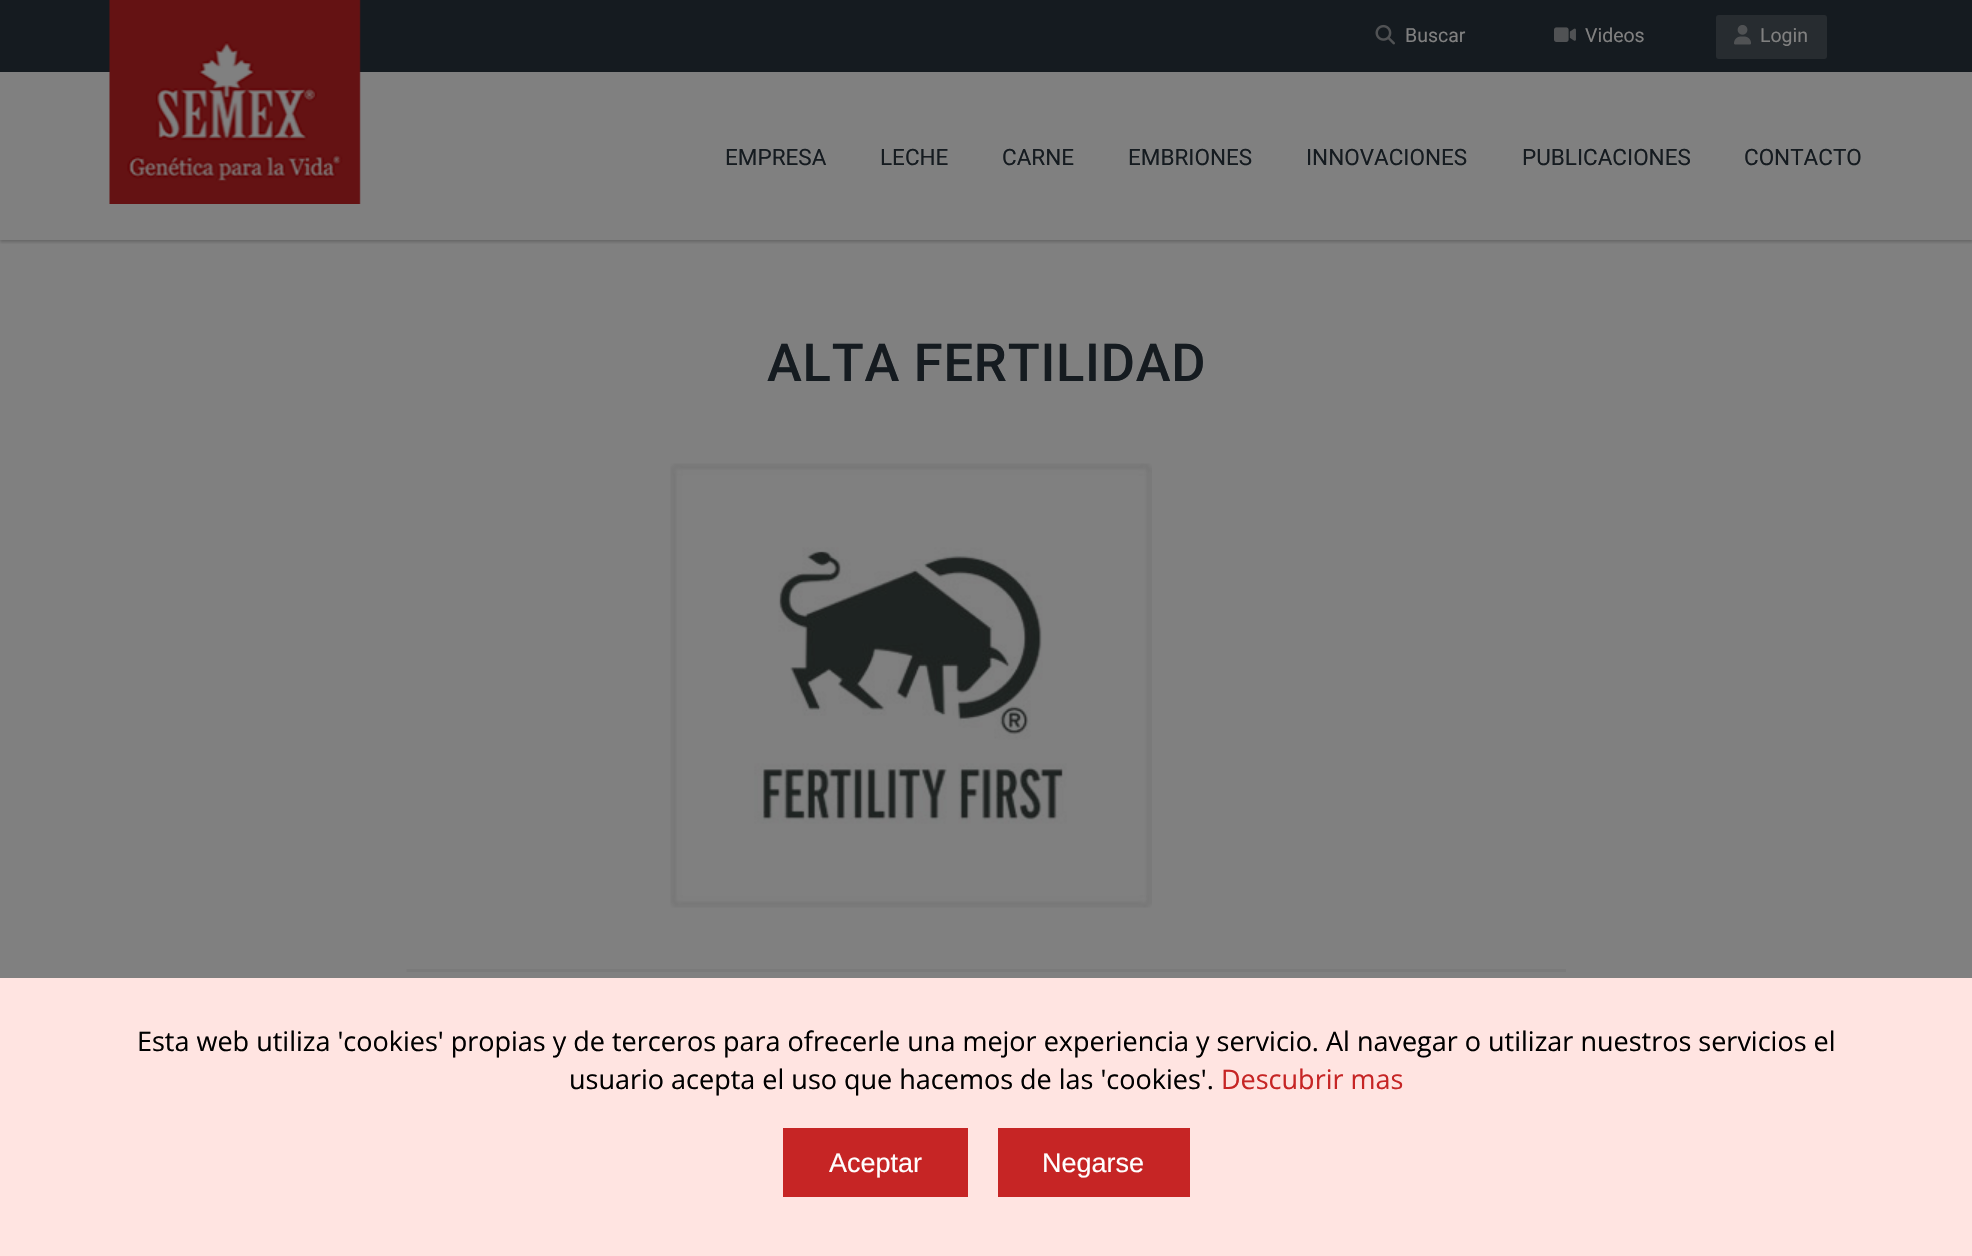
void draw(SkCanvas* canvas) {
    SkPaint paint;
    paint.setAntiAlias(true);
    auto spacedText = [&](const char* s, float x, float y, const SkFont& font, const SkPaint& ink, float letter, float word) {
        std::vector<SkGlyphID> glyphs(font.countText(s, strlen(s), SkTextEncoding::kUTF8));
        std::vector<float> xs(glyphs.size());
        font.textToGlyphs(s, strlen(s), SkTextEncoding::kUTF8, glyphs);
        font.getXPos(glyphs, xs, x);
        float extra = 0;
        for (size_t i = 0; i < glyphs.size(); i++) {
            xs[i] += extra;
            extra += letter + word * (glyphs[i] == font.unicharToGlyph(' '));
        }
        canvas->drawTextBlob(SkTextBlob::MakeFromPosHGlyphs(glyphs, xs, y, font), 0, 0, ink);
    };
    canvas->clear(0xFF808080);
    paint.setColor(0xFF151B20);
    canvas->drawRect(SkRect::MakeXYWH(0, 0, 1972, 72), paint);
    canvas->drawImageRect(SkImages::DeferredFromEncodedData(SkData::MakeFromFileName("img1.png")), SkRect::MakeXYWH(1375, 24, 20, 21), SkSamplingOptions());
    SkFont font1(fontMgr->matchFamilyStyle("Roboto", SkFontStyle::Normal()), 19.5f);
    font1.setSubpixel(true);
    paint.setColor(0xFF808080);
    canvas->drawString("Buscar", 1405, 42, font1, paint);
    canvas->drawImageRect(SkImages::DeferredFromEncodedData(SkData::MakeFromFileName("img2.png")), SkRect::MakeXYWH(1554, 27, 22, 15), SkSamplingOptions());
    canvas->drawString("Videos", 1585, 42, font1, paint);
    paint.setColor(0xFF272C30);
    canvas->drawRoundRect(SkRect::MakeXYWH(1716, 15, 111, 44), 3, 3, paint);
    canvas->drawImageRect(SkImages::DeferredFromEncodedData(SkData::MakeFromFileName("img3.png")), SkRect::MakeXYWH(1734, 25, 17, 20), SkSamplingOptions());
    paint.setColor(0xFF808080);
    canvas->drawString("Login", 1760, 42, font1, paint);
    canvas->save();
    canvas->clipRect(SkRect::MakeXYWH(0, 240, 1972, 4));
    paint.setColor(0x33000000);
    paint.setMaskFilter(SkMaskFilter::MakeBlur(kNormal_SkBlurStyle, 1.5f));
    canvas->drawRect(SkRect::MakeXYWH(0, 77, 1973, 165), paint);
    paint.setMaskFilter(nullptr);
    canvas->restore();
    canvas->drawImageRect(SkImages::DeferredFromEncodedData(SkData::MakeFromFileName("img4.png")), SkRect::MakeXYWH(109, 0, 252, 204), SkSamplingOptions());
    SkFont font2(fontMgr->matchFamilyStyle("Roboto", SkFontStyle::Normal()), 22.5f);
    font2.setSubpixel(true);
    paint.setColor(0xFF151B20);
    canvas->drawString("EMPRESA", 725, 165, font2, paint);
    canvas->drawString("LECHE", 880, 165, font2, paint);
    canvas->drawString("CARNE", 1002, 165, font2, paint);
    canvas->drawString("EMBRIONES", 1128, 165, font2, paint);
    canvas->drawString("INNOVACIONES", 1306, 165, font2, paint);
    canvas->drawString("PUBLICACIONES", 1522, 165, font2, paint);
    canvas->drawString("CONTACTO", 1744, 165, font2, paint);
    SkFont font3(fontMgr->matchFamilyStyle("Roboto", SkFontStyle(500, SkFontStyle::kNormal_Width, SkFontStyle::kUpright_Slant)), 52.5f);
    font3.setSubpixel(true);
    spacedText("ALTA FERTILIDAD", 767, 381, font3, paint, 0.75f, 0);
    canvas->drawImageRect(SkImages::DeferredFromEncodedData(SkData::MakeFromFileName("img5.png")), SkRect::MakeXYWH(670, 463, 482, 445), SkSamplingOptions());
    canvas->drawImageRect(SkImages::DeferredFromEncodedData(SkData::MakeFromFileName("img6.png")), SkRect::MakeXYWH(406, 969, 1160, 3), SkSamplingOptions());
    paint.setColor(0xFFFFE4E1);
    canvas->drawRect(SkRect::MakeXYWH(0, 978, 1972, 278), paint);
    SkFont font4(fontMgr->matchFamilyStyle("Open Sans", SkFontStyle::Normal()), 27);
    font4.setSubpixel(true);
    paint.setColor(0xFF000000);
    canvas->drawString("Esta web utiliza 'cookies' propias y de terceros para ofrecerle una mejor experiencia y servicio. Al navegar o utilizar nuestros servicios el", 137, 1051, font4, paint);
    canvas->drawString("usuario acepta el uso que hacemos de las 'cookies'.", 569, 1089, font4, paint);
    paint.setColor(0xFFC62525);
    canvas->drawString("Descubrir mas", 1221, 1089, font4, paint);
    canvas->drawRect(SkRect::MakeXYWH(783, 1128, 185, 69), paint);
    SkFont font5(fontMgr->matchFamilyStyle("Liberation Sans", SkFontStyle::Normal()), 27);
    font5.setSubpixel(true);
    paint.setColor(0xFFFFFFFF);
    canvas->drawString("Aceptar", 829, 1172, font5, paint);
    paint.setColor(0xFFC62525);
    canvas->drawRect(SkRect::MakeXYWH(998, 1128, 192, 69), paint);
    paint.setColor(0xFFFFFFFF);
    canvas->drawString("Negarse", 1042, 1172, font5, paint);
}
